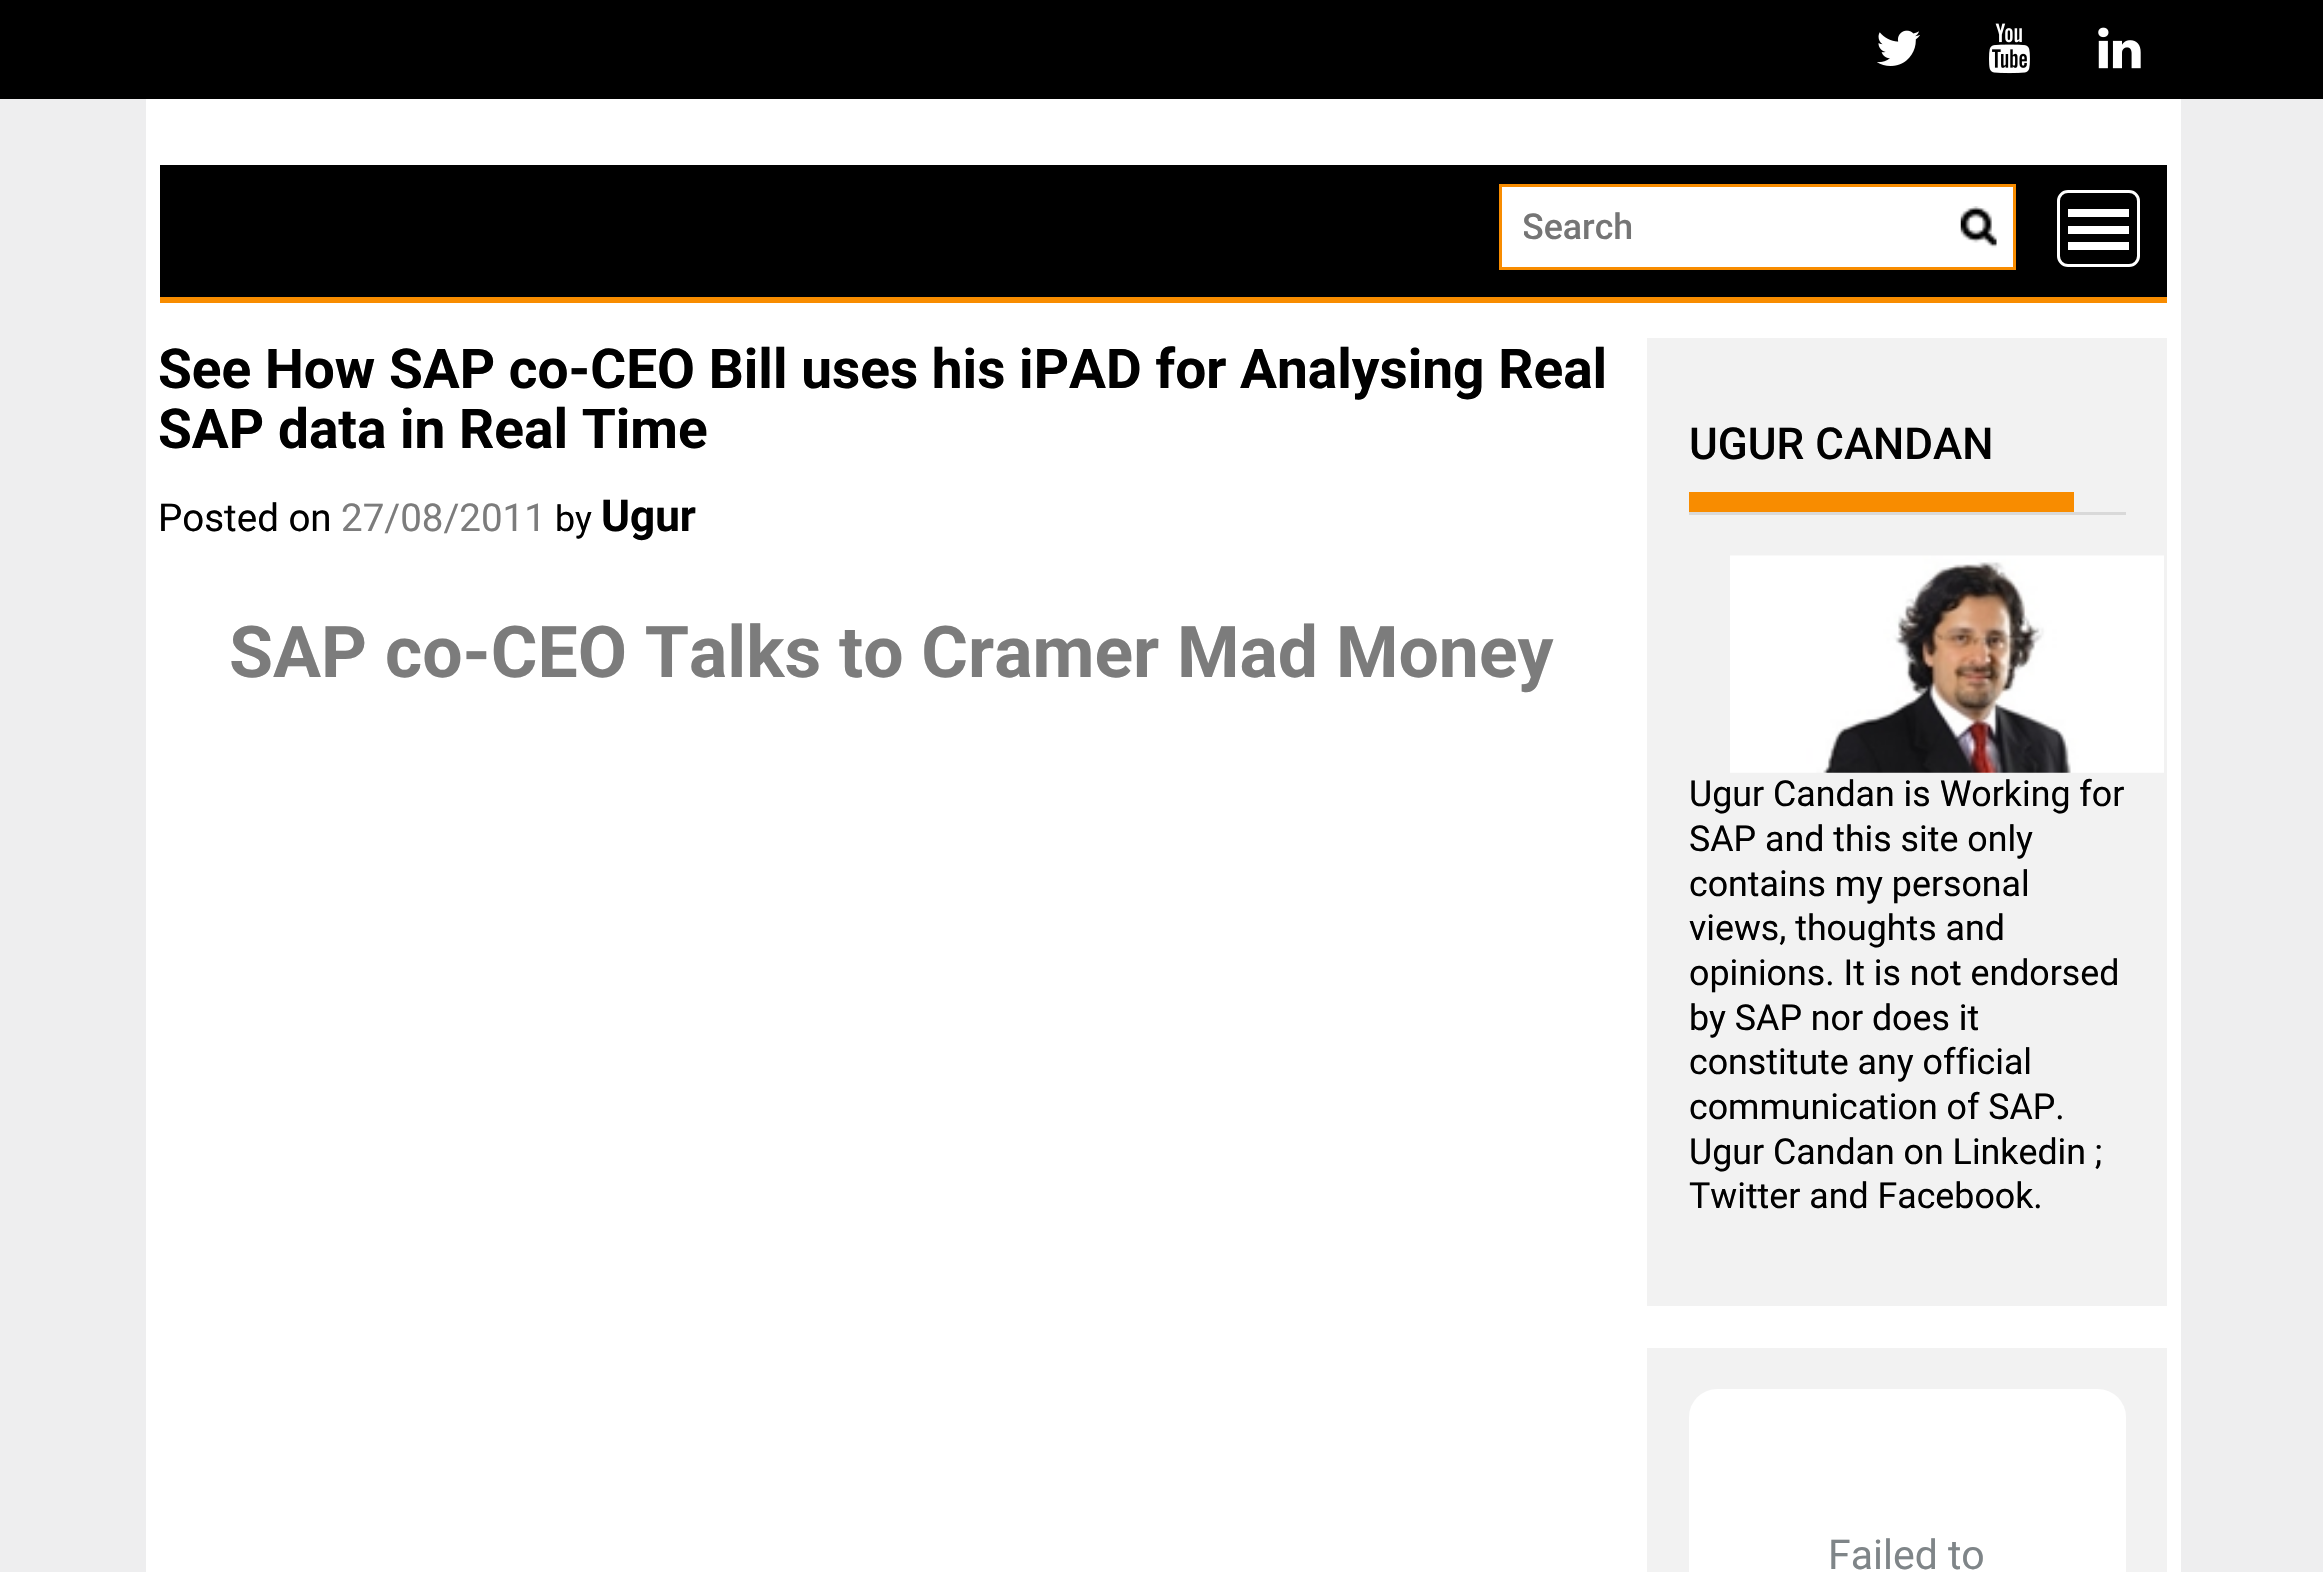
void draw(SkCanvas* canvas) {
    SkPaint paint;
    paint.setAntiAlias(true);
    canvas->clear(0xFFEEEEEF);
    paint.setColor(0xFF000000);
    canvas->drawRect(SkRect::MakeXYWH(0, 0, 2323, 99), paint);
    canvas->drawImageRect(SkImages::DeferredFromEncodedData(SkData::MakeFromFileName("img1.png")), SkRect::MakeXYWH(1877, 30, 43, 36), SkSamplingOptions());
    canvas->drawImageRect(SkImages::DeferredFromEncodedData(SkData::MakeFromFileName("img2.png")), SkRect::MakeXYWH(1989, 23, 41, 51), SkSamplingOptions());
    canvas->drawImageRect(SkImages::DeferredFromEncodedData(SkData::MakeFromFileName("img3.png")), SkRect::MakeXYWH(2098, 27, 43, 42), SkSamplingOptions());
    paint.setColor(0xFFFFFFFF);
    canvas->drawRect(SkRect::MakeXYWH(146, 99, 2035, 1473), paint);
    paint.setColor(0xFF000000);
    canvas->drawRect(SkRect::MakeXYWH(160, 165, 2007, 132), paint);
    paint.setColor(0xFFF88C00);
    canvas->drawRect(SkRect::MakeXYWH(160, 297, 2007, 6), paint);
    paint.setColor(0xFFFFFFFF);
    canvas->drawRect(SkRect::MakeXYWH(1500.5f, 185.5f, 514, 83), paint);
    paint.setStyle(SkPaint::kStroke_Style);
    paint.setStrokeWidth(3);
    paint.setColor(0xFFF88C00);
    canvas->drawRect(SkRect::MakeXYWH(1500.5f, 185.5f, 514, 83), paint);
    canvas->save();
    canvas->clipRect(SkRect::MakeXYWH(1524, 206, 426, 42));
    SkFont font1(fontMgr->matchFamilyStyle("Roboto", SkFontStyle(500, SkFontStyle::kNormal_Width, SkFontStyle::kUpright_Slant)), 35.75f);
    font1.setSubpixel(true);
    paint.setStyle(SkPaint::kFill_Style);
    paint.setColor(0xFF757575);
    canvas->drawString("Search", 1522, 239, font1, paint);
    canvas->restore();
    canvas->drawImageRect(SkImages::DeferredFromEncodedData(SkData::MakeFromFileName("img4.png")), SkRect::MakeXYWH(1960, 206, 37, 42), SkSamplingOptions());
    paint.setStyle(SkPaint::kStroke_Style);
    paint.setColor(0xFFFFFFFF);
    canvas->drawRoundRect(SkRect::MakeXYWH(2058.5f, 191.5f, 80, 74), 9.5f, 9.5f, paint);
    paint.setStyle(SkPaint::kFill_Style);
    canvas->drawRect(SkRect::MakeXYWH(2068, 242, 61, 8), paint);
    canvas->drawRect(SkRect::MakeXYWH(2068, 226, 61, 8), paint);
    canvas->drawRect(SkRect::MakeXYWH(2068, 209, 61, 8), paint);
    SkFont font2(fontMgr->matchFamilyStyle("Roboto", SkFontStyle::Bold()), 55);
    font2.setSubpixel(true);
    paint.setColor(0xFF000000);
    canvas->drawString("See How SAP co-CEO Bill uses his iPAD for Analysing Real", 158, 388, font2, paint);
    canvas->drawString("SAP data in Real Time", 158, 448, font2, paint);
    SkFont font3(fontMgr->matchFamilyStyle("Roboto", SkFontStyle::Normal()), 38.5f);
    font3.setSubpixel(true);
    canvas->drawString("Posted on", 158, 531, font3, paint);
    paint.setColor(0xFF7C7C7C);
    canvas->drawString("27/08/2011", 341, 531, font3, paint);
    SkFont font4(fontMgr->matchFamilyStyle("Roboto", SkFontStyle::Normal()), 35.75f);
    font4.setSubpixel(true);
    paint.setColor(0xFF000000);
    canvas->drawString("by", 555, 531, font4, paint);
    SkFont font5(fontMgr->matchFamilyStyle("Roboto", SkFontStyle::Bold()), 44);
    font5.setSubpixel(true);
    canvas->drawString("Ugur", 601, 531, font5, paint);
    SkFont font6(fontMgr->matchFamilyStyle("Roboto", SkFontStyle::Bold()), 71.5f);
    font6.setSubpixel(true);
    paint.setColor(0xFF7C7C7C);
    canvas->drawString("SAP co-CEO Talks to Cramer Mad Money", 229, 677, font6, paint);
    paint.setColor(0xFFF2F2F2);
    canvas->drawRect(SkRect::MakeXYWH(1647, 338, 520, 968), paint);
    paint.setColor(0xFFD9D9D9);
    canvas->drawRect(SkRect::MakeXYWH(1689, 512, 437, 3), paint);
    SkFont font7(fontMgr->matchFamilyStyle("Roboto", SkFontStyle(500, SkFontStyle::kNormal_Width, SkFontStyle::kUpright_Slant)), 44);
    font7.setSubpixel(true);
    paint.setColor(0xFF000000);
    canvas->drawString("UGUR CANDAN", 1689, 459, font7, paint);
    paint.setColor(0xFFF88C00);
    canvas->drawRect(SkRect::MakeXYWH(1689, 492, 385, 20), paint);
    canvas->drawImageRect(SkImages::DeferredFromEncodedData(SkData::MakeFromFileName("img5.png")), SkRect::MakeXYWH(1730, 555, 434, 218), SkSamplingOptions());
    paint.setColor(0xFF000000);
    canvas->drawString("Ugur Candan is Working for", 1689, 806, font4, paint);
    canvas->drawString("SAP and this site only", 1689, 851, font4, paint);
    canvas->drawString("contains my personal", 1689, 896, font4, paint);
    canvas->drawString("views, thoughts and", 1689, 940, font4, paint);
    canvas->drawString("opinions. It is not endorsed", 1689, 985, font4, paint);
    canvas->drawString("by SAP nor does it", 1689, 1030, font4, paint);
    canvas->drawString("constitute any official", 1689, 1074, font4, paint);
    canvas->drawString("communication of SAP.", 1689, 1119, font4, paint);
    canvas->drawString("Ugur Candan on Linkedin ;", 1689, 1164, font4, paint);
    canvas->drawString("Twitter and Facebook.", 1689, 1208, font4, paint);
    paint.setColor(0xFFF2F2F2);
    canvas->drawRect(SkRect::MakeXYWH(1647, 1348, 520, 224), paint);
    paint.setColor(0xFFFFFFFF);
    canvas->drawRoundRect(SkRect::MakeXYWH(1689, 1389, 437, 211), 28, 28, paint);
    SkFont font8(fontMgr->matchFamilyStyle("Roboto", SkFontStyle::Normal()), 41);
    font8.setSubpixel(true);
    paint.setColor(0xFF7F8588);
    canvas->drawString("Failed to", 1828, 1569, font8, paint);
}
